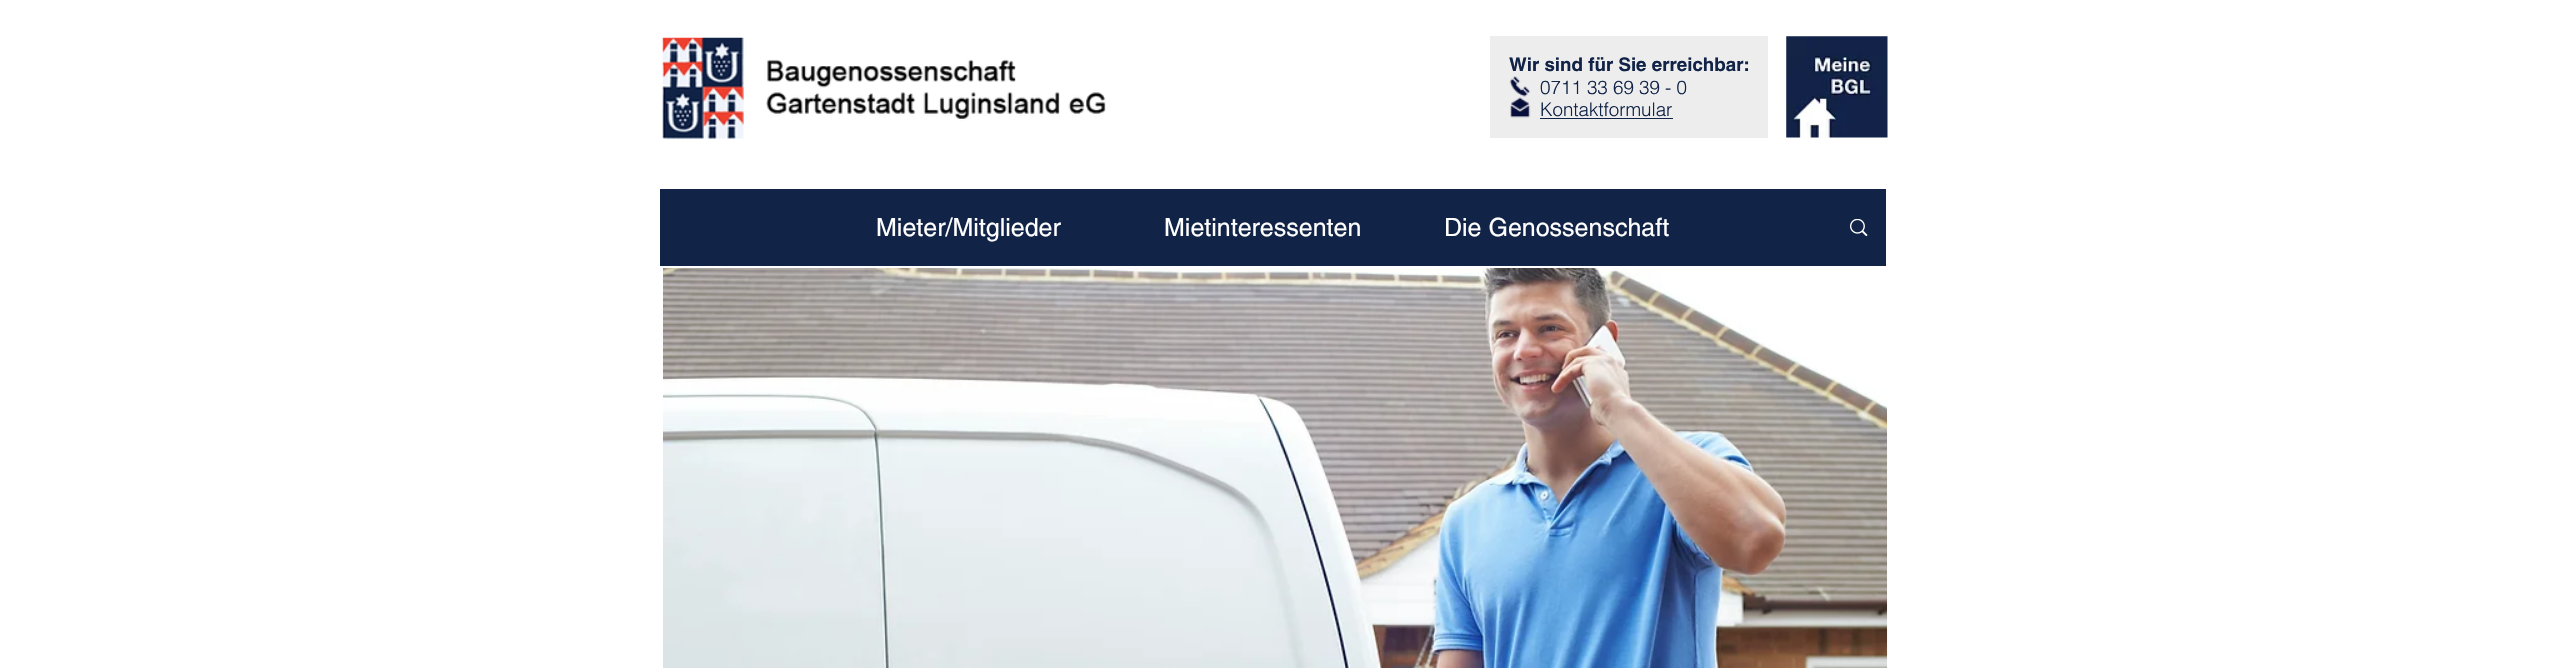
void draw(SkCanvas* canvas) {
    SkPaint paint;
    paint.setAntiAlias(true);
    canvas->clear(0xFFFFFFFF);
    canvas->drawImageRect(SkImages::DeferredFromEncodedData(SkData::MakeFromFileName("img1.png")), SkRect::MakeXYWH(662, 37, 444, 102), SkSamplingOptions());
    paint.setColor(0xFFEDEDED);
    canvas->drawRect(SkRect::MakeXYWH(1490, 36, 278, 102), paint);
    SkFont font1(fontMgr->matchFamilyStyle("helvetica", SkFontStyle::Bold()), 18.75f);
    font1.setSubpixel(true);
    paint.setColor(0xFF112346);
    canvas->drawString("Wir sind für Sie erreichbar:", 1509, 71, font1, paint);
    SkFont font2(fontMgr->matchFamilyStyle("helvetica", SkFontStyle(300, SkFontStyle::kNormal_Width, SkFontStyle::kUpright_Slant)), 18.75f);
    font2.setSubpixel(true);
    canvas->drawString("0711 33 69 39 - 0", 1540, 94, font2, paint);
    canvas->drawString("Kontaktformular", 1540, 116, font2, paint);
    canvas->drawRect(SkRect::MakeXYWH(1540, 118, 133, 1), paint);
    canvas->drawImageRect(SkImages::DeferredFromEncodedData(SkData::MakeFromFileName("img2.png")), SkRect::MakeXYWH(1509, 76, 22, 21), SkSamplingOptions());
    canvas->drawImageRect(SkImages::DeferredFromEncodedData(SkData::MakeFromFileName("img3.png")), SkRect::MakeXYWH(1510, 97, 21, 21), SkSamplingOptions());
    canvas->drawImageRect(SkImages::DeferredFromEncodedData(SkData::MakeFromFileName("img4.png")), SkRect::MakeXYWH(1786, 36, 102, 102), SkSamplingOptions());
    canvas->drawRect(SkRect::MakeXYWH(660, 189, 1226, 77), paint);
    SkFont font3(fontMgr->matchFamilyStyle("helvetica", SkFontStyle::Normal()), 25);
    font3.setSubpixel(true);
    paint.setColor(0xFFFFFFFF);
    canvas->drawString("Mieter/Mitglieder", 876, 236, font3, paint);
    canvas->drawString("Mietinteressenten", 1164, 236, font3, paint);
    canvas->drawString("Die Genossenschaft", 1444, 236, font3, paint);
    canvas->drawImageRect(SkImages::DeferredFromEncodedData(SkData::MakeFromFileName("img5.png")), SkRect::MakeXYWH(1850, 219, 18, 17), SkSamplingOptions());
    canvas->drawImageRect(SkImages::DeferredFromEncodedData(SkData::MakeFromFileName("img6.png")), SkRect::MakeXYWH(663, 268, 1225, 400), SkSamplingOptions());
}
